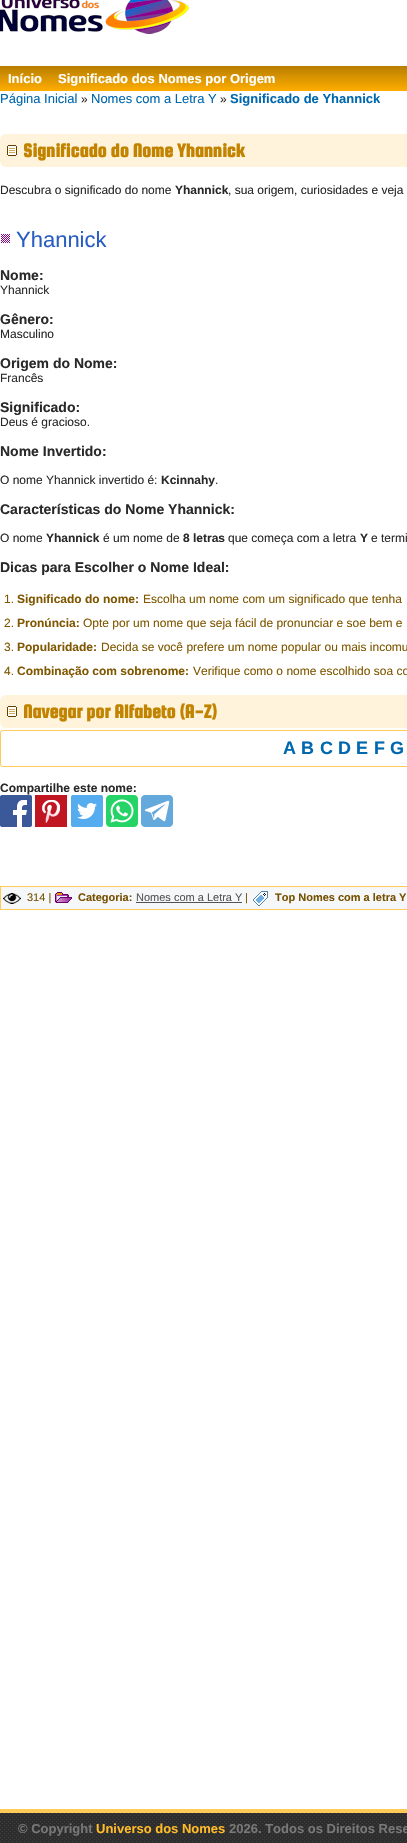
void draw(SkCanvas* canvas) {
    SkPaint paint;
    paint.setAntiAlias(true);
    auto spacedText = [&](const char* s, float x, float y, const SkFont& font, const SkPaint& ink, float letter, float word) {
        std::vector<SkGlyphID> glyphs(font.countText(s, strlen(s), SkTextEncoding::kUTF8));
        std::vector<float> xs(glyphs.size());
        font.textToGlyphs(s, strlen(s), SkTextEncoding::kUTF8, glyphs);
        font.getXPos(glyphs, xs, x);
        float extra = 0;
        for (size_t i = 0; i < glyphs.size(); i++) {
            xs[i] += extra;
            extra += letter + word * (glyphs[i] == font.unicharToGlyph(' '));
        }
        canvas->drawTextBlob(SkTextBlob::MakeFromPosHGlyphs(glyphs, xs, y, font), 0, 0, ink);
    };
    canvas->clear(0xFFFFFFFF);
    canvas->drawImageRect(SkImages::DeferredFromEncodedData(SkData::MakeFromFileName("img1.png")), SkRect::MakeXYWH(0, 0, 189, 34), SkSamplingOptions());
    {
        const SkColor colors[] = {0xFFB87D00, 0xFFFFAE00};
        const float stops[] = {0, 1};
        const SkPoint ends[] = {{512, 66}, {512, 91}};
        paint.setShader(SkGradientShader::MakeLinear(ends, colors, stops, 2, SkTileMode::kClamp));
        paint.setAlpha(255);
    }
    canvas->drawRect(SkRect::MakeXYWH(0, 66, 407, 25), paint);
    SkFont font1(fontMgr->matchFamilyStyle("Liberation Sans", SkFontStyle::Bold()), 13);
    font1.setSubpixel(true);
    paint.setShader(nullptr);
    paint.setColor(0xFFFFFFFF);
    canvas->drawString("Início", 8, 83, font1, paint);
    canvas->drawString("Significado dos Nomes por Origem", 58, 83, font1, paint);
    SkFont font2(fontMgr->matchFamilyStyle("Liberation Sans", SkFontStyle::Normal()), 13);
    font2.setSubpixel(true);
    paint.setColor(0xFF0068AF);
    canvas->drawString("Página Inicial", 0, 103, font2, paint);
    SkFont font3(fontMgr->matchFamilyStyle("Liberation Sans", SkFontStyle::Normal()), 12);
    font3.setSubpixel(true);
    paint.setColor(0xFF292929);
    canvas->drawString("»", 81, 103, font3, paint);
    paint.setColor(0xFF0068AF);
    canvas->drawString("Nomes com a Letra Y", 91, 103, font2, paint);
    paint.setColor(0xFF292929);
    canvas->drawString("»", 220, 103, font3, paint);
    paint.setColor(0xFF0068AF);
    canvas->drawString("Significado de Yhannick", 230, 103, font1, paint);
    paint.setColor(0xFFFFF4DB);
    canvas->drawRoundRect(SkRect::MakeXYWH(0, 134, 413, 33), 6, 6, paint);
    canvas->drawImageRect(SkImages::DeferredFromEncodedData(SkData::MakeFromFileName("img2.png")), SkRect::MakeXYWH(7, 145, 10, 11), SkSamplingOptions());
    SkFont font4(fontMgr->matchFamilyStyle("Squada One", SkFontStyle::Bold()), 20);
    font4.setSubpixel(true);
    paint.setColor(0xFFC28400);
    canvas->drawString("Significado do Nome Yhannick", 23, 157, font4, paint);
    paint.setColor(0xFF292929);
    canvas->drawString("Descubra o significado do nome", 0, 194, font3, paint);
    SkFont font5(fontMgr->matchFamilyStyle("Liberation Sans", SkFontStyle::Bold()), 12);
    font5.setSubpixel(true);
    canvas->drawString("Yhannick", 175, 194, font5, paint);
    canvas->drawString(", sua origem, curiosidades e veja", 228, 194, font3, paint);
    canvas->drawImageRect(SkImages::DeferredFromEncodedData(SkData::MakeFromFileName("img3.png")), SkRect::MakeXYWH(1, 234, 9, 9), SkSamplingOptions());
    SkFont font6(fontMgr->matchFamilyStyle("Liberation Sans", SkFontStyle::Normal()), 22);
    font6.setSubpixel(true);
    paint.setColor(0xFF275DC1);
    canvas->drawString("Yhannick", 16, 247, font6, paint);
    SkFont font7(fontMgr->matchFamilyStyle("Liberation Sans", SkFontStyle::Bold()), 14);
    font7.setSubpixel(true);
    paint.setColor(0xFF292929);
    canvas->drawString("Nome:", 0, 280, font7, paint);
    canvas->drawString("Yhannick", 0, 294, font3, paint);
    canvas->drawString("Gênero:", 0, 324, font7, paint);
    canvas->drawString("Masculino", 0, 338, font3, paint);
    canvas->drawString("Origem do Nome:", 0, 368, font7, paint);
    canvas->drawString("Francês", 0, 382, font3, paint);
    canvas->drawString("Significado:", 0, 412, font7, paint);
    canvas->drawString("Deus é gracioso.", 0, 426, font3, paint);
    canvas->drawString("Nome Invertido:", 0, 456, font7, paint);
    canvas->drawString("O nome Yhannick invertido é:", 0, 484, font3, paint);
    canvas->drawString("Kcinnahy", 161, 484, font5, paint);
    canvas->drawString(".", 215, 484, font3, paint);
    canvas->drawString("Características do Nome Yhannick:", 0, 514, font7, paint);
    canvas->drawString("O nome", 0, 542, font3, paint);
    canvas->drawString("Yhannick", 46, 542, font5, paint);
    canvas->drawString("é um nome de", 103, 542, font3, paint);
    canvas->drawString("8 letras", 183, 542, font5, paint);
    canvas->drawString("que começa com a letra", 228, 542, font3, paint);
    canvas->drawString("Y", 360, 542, font5, paint);
    canvas->drawString("e termi", 371, 542, font3, paint);
    canvas->drawString("Dicas para Escolher o Nome Ideal:", 0, 572, font7, paint);
    paint.setColor(0xFF805700);
    canvas->drawString("1.", 4, 603, font3, paint);
    canvas->drawString("Significado do nome:", 17, 603, font5, paint);
    canvas->drawString("Escolha um nome com um significado que tenha", 143, 603, font3, paint);
    canvas->drawString("2.", 4, 627, font3, paint);
    canvas->drawString("Pronúncia:", 17, 627, font5, paint);
    canvas->drawString("Opte por um nome que seja fácil de pronunciar e soe bem e", 83, 627, font3, paint);
    canvas->drawString("3.", 4, 651, font3, paint);
    canvas->drawString("Popularidade:", 17, 651, font5, paint);
    canvas->drawString("Decida se você prefere um nome popular ou mais incomu", 101, 651, font3, paint);
    canvas->drawString("4.", 4, 675, font3, paint);
    canvas->drawString("Combinação com sobrenome:", 17, 675, font5, paint);
    canvas->drawString("Verifique como o nome escolhido soa co", 193, 675, font3, paint);
    paint.setColor(0xFFFFF4DB);
    canvas->drawRoundRect(SkRect::MakeXYWH(0, 695, 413, 33), 6, 6, paint);
    canvas->drawImageRect(SkImages::DeferredFromEncodedData(SkData::MakeFromFileName("img2.png")), SkRect::MakeXYWH(7, 706, 10, 11), SkSamplingOptions());
    paint.setColor(0xFFC28400);
    canvas->drawString("Navegar por Alfabeto (A-Z)", 23, 718, font4, paint);
    paint.setStyle(SkPaint::kStroke_Style);
    paint.setStrokeWidth(1);
    paint.setColor(0xFFFFCA57);
    canvas->drawRoundRect(SkRect::MakeXYWH(0.5f, 730.5f, 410, 36), 2.5f, 2.5f, paint);
    SkFont font8(fontMgr->matchFamilyStyle("Liberation Sans", SkFontStyle::Bold()), 18);
    font8.setSubpixel(true);
    paint.setStyle(SkPaint::kFill_Style);
    paint.setColor(0xFF0068AF);
    spacedText("A", 283, 754, font8, paint, 2, 0);
    spacedText("B", 301, 754, font8, paint, 2, 0);
    spacedText("C", 320, 754, font8, paint, 2, 0);
    spacedText("D", 338, 754, font8, paint, 2, 0);
    spacedText("E", 356, 754, font8, paint, 2, 0);
    spacedText("F", 374, 754, font8, paint, 2, 0);
    spacedText("G", 390, 754, font8, paint, 2, 0);
    paint.setColor(0xFF292929);
    canvas->drawString("Compartilhe este nome:", 0, 792, font5, paint);
    canvas->drawImageRect(SkImages::DeferredFromEncodedData(SkData::MakeFromFileName("img4.png")), SkRect::MakeXYWH(0, 795, 32, 32), SkSamplingOptions());
    canvas->drawImageRect(SkImages::DeferredFromEncodedData(SkData::MakeFromFileName("img5.png")), SkRect::MakeXYWH(35, 795, 32, 32), SkSamplingOptions());
    canvas->drawImageRect(SkImages::DeferredFromEncodedData(SkData::MakeFromFileName("img6.png")), SkRect::MakeXYWH(71, 795, 32, 32), SkSamplingOptions());
    canvas->drawImageRect(SkImages::DeferredFromEncodedData(SkData::MakeFromFileName("img7.png")), SkRect::MakeXYWH(106, 795, 32, 32), SkSamplingOptions());
    canvas->drawImageRect(SkImages::DeferredFromEncodedData(SkData::MakeFromFileName("img8.png")), SkRect::MakeXYWH(141, 795, 32, 32), SkSamplingOptions());
    paint.setColor(0xFFF5F7F9);
    canvas->drawRect(SkRect::MakeXYWH(0.5f, 886.5f, 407, 23), paint);
    paint.setStyle(SkPaint::kStroke_Style);
    paint.setColor(0xFFFFCA57);
    canvas->drawRect(SkRect::MakeXYWH(0.5f, 886.5f, 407, 23), paint);
    canvas->drawImageRect(SkImages::DeferredFromEncodedData(SkData::MakeFromFileName("img9.png")), SkRect::MakeXYWH(3, 893, 18, 11), SkSamplingOptions());
    SkFont font9(fontMgr->matchFamilyStyle("Liberation Sans", SkFontStyle::Normal()), 11);
    font9.setSubpixel(true);
    paint.setStyle(SkPaint::kFill_Style);
    paint.setColor(0xFF755000);
    canvas->drawString("314 |", 27, 901, font9, paint);
    canvas->drawImageRect(SkImages::DeferredFromEncodedData(SkData::MakeFromFileName("img10.png")), SkRect::MakeXYWH(55, 892, 17, 11), SkSamplingOptions());
    SkFont font10(fontMgr->matchFamilyStyle("Liberation Sans", SkFontStyle::Bold()), 11);
    font10.setSubpixel(true);
    canvas->drawString("Categoria:", 78, 901, font10, paint);
    paint.setColor(0xFF545454);
    canvas->drawString("Nomes com a Letra Y", 136, 901, font9, paint);
    canvas->drawRect(SkRect::MakeXYWH(136, 902, 106, 1), paint);
    paint.setColor(0xFF755000);
    canvas->drawString("|", 245, 901, font9, paint);
    canvas->drawImageRect(SkImages::DeferredFromEncodedData(SkData::MakeFromFileName("img11.png")), SkRect::MakeXYWH(253, 891, 15, 15), SkSamplingOptions());
    canvas->drawString("Top Nomes com a letra Y", 275, 901, font10, paint);
    paint.setColor(0xFF333333);
    canvas->drawRect(SkRect::MakeXYWH(0, 1813, 407, 30), paint);
    canvas->drawImageRect(SkImages::DeferredFromEncodedData(SkData::MakeFromFileName("img12.png")), SkRect::MakeXYWH(0, 1813, 407, 30), SkSamplingOptions());
    paint.setColor(0xFFFFCA57);
    canvas->drawRect(SkRect::MakeXYWH(0, 1809, 407, 4), paint);
    paint.setColor(0xFF787878);
    canvas->drawString("© Copyright", 18, 1833, font1, paint);
    paint.setColor(0xFFFFBB29);
    canvas->drawString("Universo dos Nomes", 96, 1833, font1, paint);
    paint.setColor(0xFF787878);
    canvas->drawString("2026. Todos os Direitos Rese", 229, 1833, font1, paint);
}
